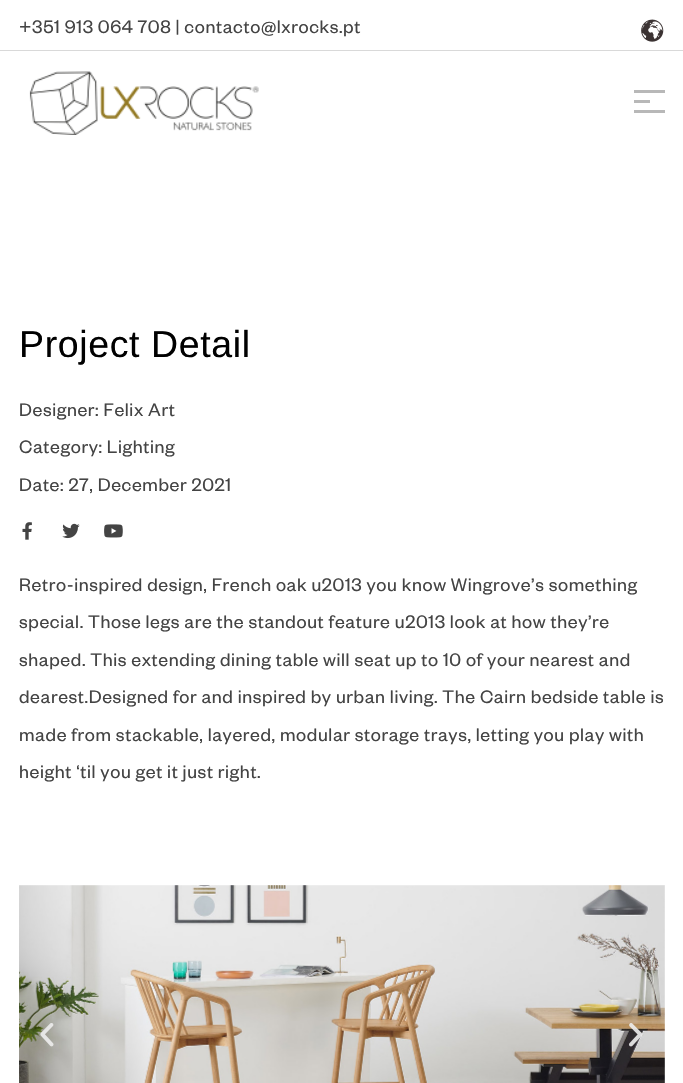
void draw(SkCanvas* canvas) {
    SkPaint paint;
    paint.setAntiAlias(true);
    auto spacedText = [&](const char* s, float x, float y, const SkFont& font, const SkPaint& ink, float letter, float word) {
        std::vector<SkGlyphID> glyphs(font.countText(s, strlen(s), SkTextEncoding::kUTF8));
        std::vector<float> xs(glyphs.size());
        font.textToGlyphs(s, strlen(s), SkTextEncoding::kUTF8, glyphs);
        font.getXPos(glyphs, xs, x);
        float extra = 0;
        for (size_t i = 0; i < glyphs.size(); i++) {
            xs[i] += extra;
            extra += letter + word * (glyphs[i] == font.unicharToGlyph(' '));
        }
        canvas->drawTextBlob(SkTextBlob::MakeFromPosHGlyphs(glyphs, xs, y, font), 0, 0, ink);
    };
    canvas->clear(0xFFFFFFFF);
    paint.setColor(0xFFD9D9D9);
    canvas->drawRect(SkRect::MakeXYWH(0, 50, 683, 1), paint);
    SkFont font1(fontMgr->matchFamilyStyle("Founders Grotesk", SkFontStyle::Normal()), 20);
    font1.setSubpixel(true);
    paint.setColor(0xFF444444);
    spacedText("+351 913 064 708 | contacto@lxrocks.pt", 19, 33, font1, paint, 0.62f, 0);
    canvas->drawImageRect(SkImages::DeferredFromEncodedData(SkData::MakeFromFileName("img1.png")), SkRect::MakeXYWH(29, 71, 230, 64), SkSamplingOptions());
    paint.setColor(0xFFB8B8B8);
    canvas->drawRect(SkRect::MakeXYWH(634, 90, 31, 3), paint);
    canvas->drawRect(SkRect::MakeXYWH(634, 100, 16, 3), paint);
    canvas->drawRect(SkRect::MakeXYWH(634, 110, 31, 3), paint);
    SkFont font2(fontMgr->matchFamilyStyle("Liberation Sans", SkFontStyle::Normal()), 37.5f);
    font2.setSubpixel(true);
    paint.setColor(0xFF000000);
    spacedText("Project Detail", 19, 357, font2, paint, 0.62f, 0);
    paint.setColor(0xFF444444);
    spacedText("Designer: Felix Art", 19, 416, font1, paint, 0.62f, 0);
    spacedText("Category: Lighting", 19, 453, font1, paint, 0.62f, 0);
    spacedText("Date: 27, December 2021", 19, 491, font1, paint, 0.62f, 0);
    canvas->drawImageRect(SkImages::DeferredFromEncodedData(SkData::MakeFromFileName("img2.png")), SkRect::MakeXYWH(22, 522, 10, 18), SkSamplingOptions());
    canvas->drawImageRect(SkImages::DeferredFromEncodedData(SkData::MakeFromFileName("img3.png")), SkRect::MakeXYWH(62, 523, 18, 16), SkSamplingOptions());
    canvas->drawImageRect(SkImages::DeferredFromEncodedData(SkData::MakeFromFileName("img4.png")), SkRect::MakeXYWH(104, 524, 19, 14), SkSamplingOptions());
    spacedText("Retro-inspired design, French oak u2013 you know Wingrove’s something", 19, 591, font1, paint, 0.62f, 0);
    spacedText("special. Those legs are the standout feature u2013 look at how they’re", 19, 628, font1, paint, 0.62f, 0);
    spacedText("shaped. This extending dining table will seat up to 10 of your nearest and", 19, 666, font1, paint, 0.62f, 0);
    spacedText("dearest.Designed for and inspired by urban living. The Cairn bedside table is", 19, 703, font1, paint, 0.62f, 0);
    spacedText("made from stackable, layered, modular storage trays, letting you play with", 19, 741, font1, paint, 0.62f, 0);
    spacedText("height ‘til you get it just right.", 19, 778, font1, paint, 0.62f, 0);
    canvas->drawImageRect(SkImages::DeferredFromEncodedData(SkData::MakeFromFileName("img5.png")), SkRect::MakeXYWH(19, 885, 646, 198), SkSamplingOptions());
    canvas->drawImageRect(SkImages::DeferredFromEncodedData(SkData::MakeFromFileName("img6.png")), SkRect::MakeXYWH(40, 1023, 14, 24), SkSamplingOptions());
    canvas->drawImageRect(SkImages::DeferredFromEncodedData(SkData::MakeFromFileName("img7.png")), SkRect::MakeXYWH(629, 1023, 14, 24), SkSamplingOptions());
    canvas->drawImageRect(SkImages::DeferredFromEncodedData(SkData::MakeFromFileName("img8.png")), SkRect::MakeXYWH(641, 19, 23, 23), SkSamplingOptions());
}
